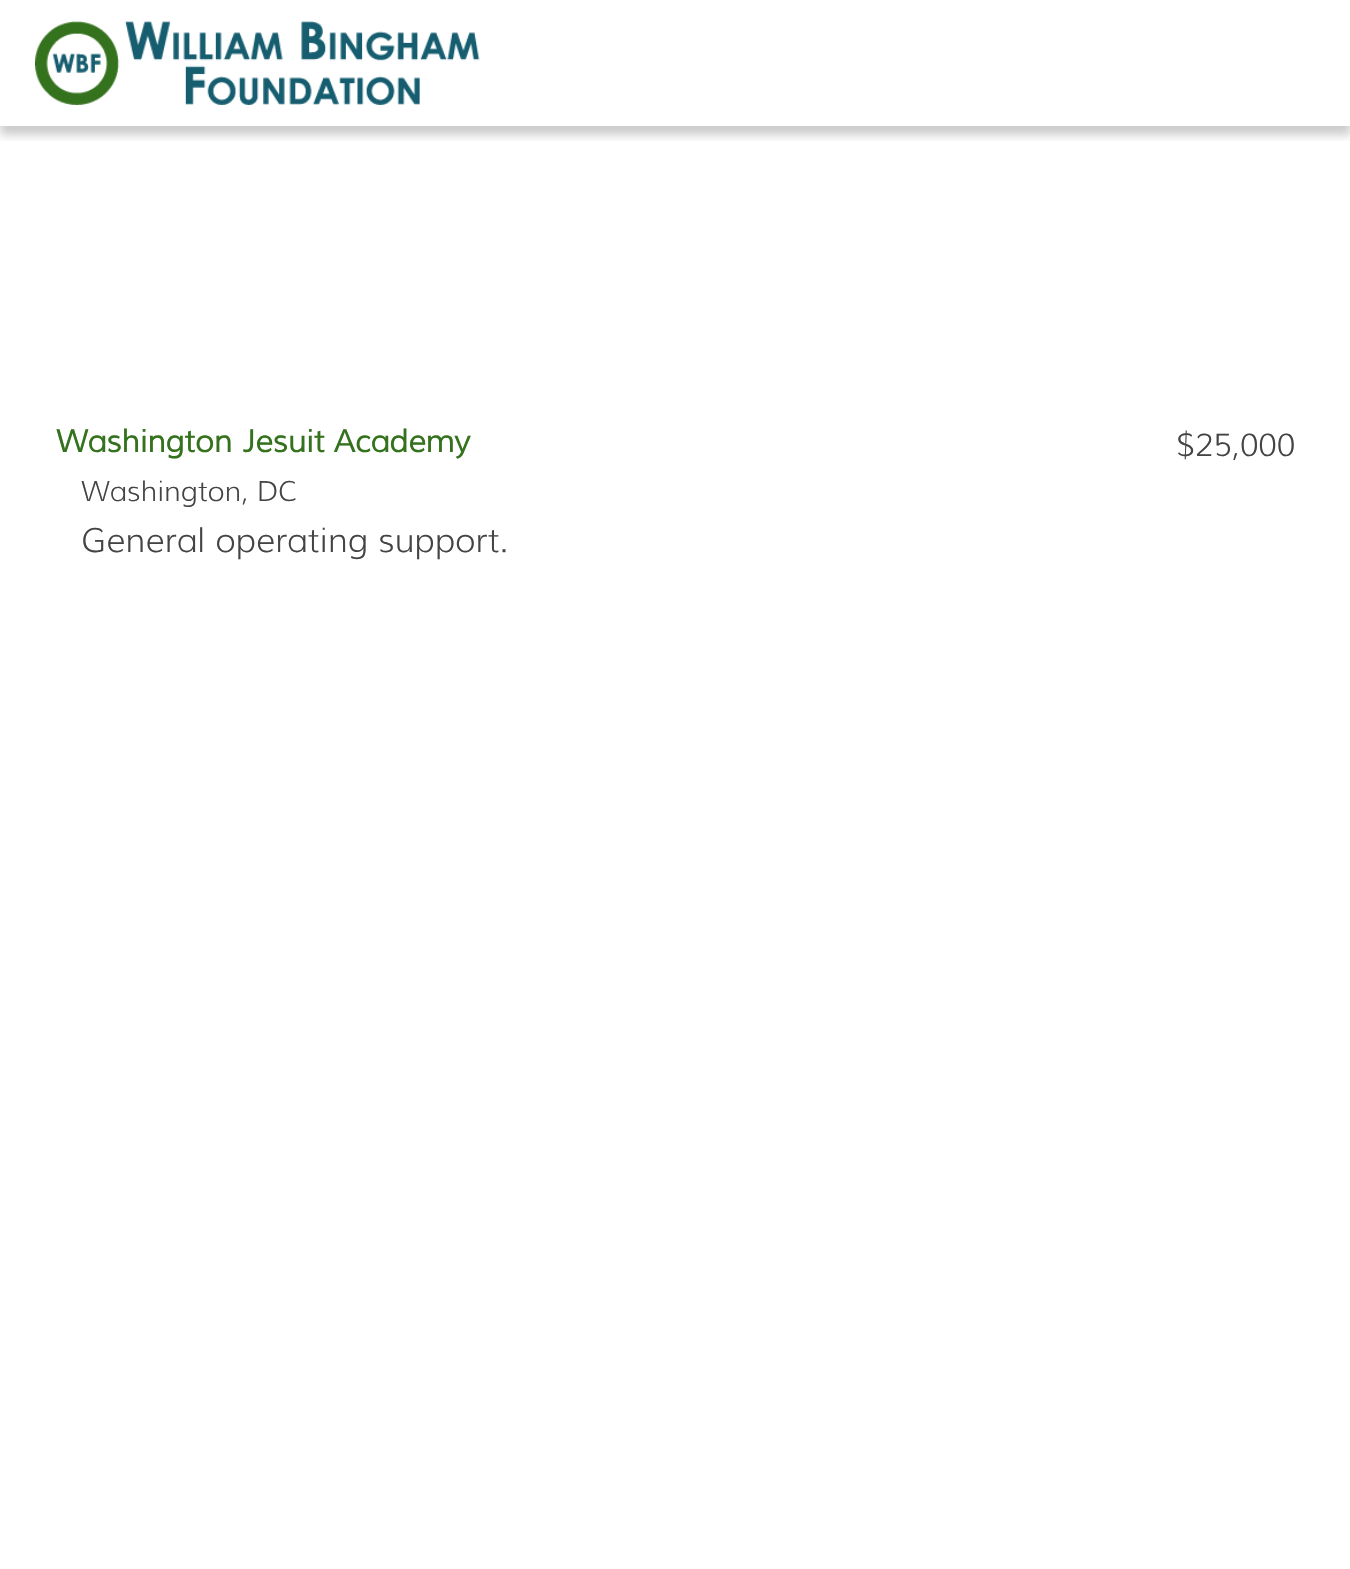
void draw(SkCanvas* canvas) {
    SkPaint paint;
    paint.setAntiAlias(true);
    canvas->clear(0xFFFFFFFF);
    canvas->save();
    canvas->clipRect(SkRect::MakeXYWH(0, 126, 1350, 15));
    paint.setColor(0x33000000);
    paint.setMaskFilter(SkMaskFilter::MakeBlur(kNormal_SkBlurStyle, 4.5f));
    canvas->drawRect(SkRect::MakeXYWH(0, 9, 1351, 126), paint);
    paint.setMaskFilter(nullptr);
    canvas->restore();
    canvas->drawImageRect(SkImages::DeferredFromEncodedData(SkData::MakeFromFileName("img1.png")), SkRect::MakeXYWH(35, 21, 445, 84), SkSamplingOptions());
    SkFont font1(fontMgr->matchFamilyStyle("Muli", SkFontStyle::Bold()), 30.75f);
    font1.setSubpixel(true);
    paint.setColor(0xFF35721E);
    canvas->drawString("Washington Jesuit Academy", 56, 452, font1, paint);
    SkFont font2(fontMgr->matchFamilyStyle("Muli", SkFontStyle(300, SkFontStyle::kNormal_Width, SkFontStyle::kUpright_Slant)), 31.5f);
    font2.setSubpixel(true);
    paint.setColor(0xFF444444);
    canvas->drawString("$25,000", 1176, 456, font2, paint);
    SkFont font3(fontMgr->matchFamilyStyle("Muli", SkFontStyle(300, SkFontStyle::kNormal_Width, SkFontStyle::kUpright_Slant)), 28);
    font3.setSubpixel(true);
    canvas->drawString("Washington, DC", 81, 501, font3, paint);
    SkFont font4(fontMgr->matchFamilyStyle("Muli", SkFontStyle(300, SkFontStyle::kNormal_Width, SkFontStyle::kUpright_Slant)), 33.6f);
    font4.setSubpixel(true);
    canvas->drawString("General operating support.", 81, 552, font4, paint);
}
